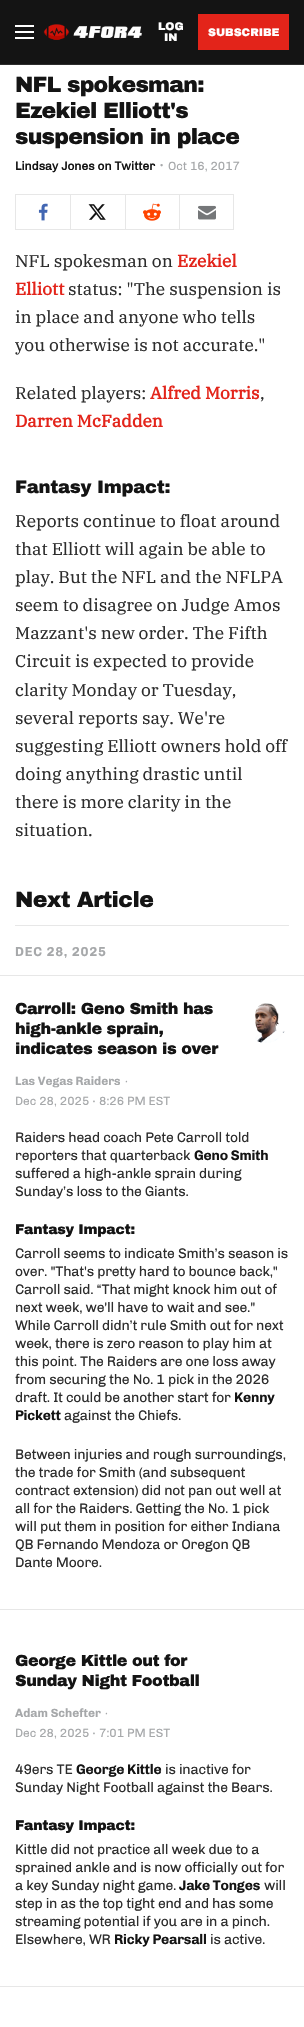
void draw(SkCanvas* canvas) {
    SkPaint paint;
    paint.setAntiAlias(true);
    auto spacedText = [&](const char* s, float x, float y, const SkFont& font, const SkPaint& ink, float letter, float word) {
        std::vector<SkGlyphID> glyphs(font.countText(s, strlen(s), SkTextEncoding::kUTF8));
        std::vector<float> xs(glyphs.size());
        font.textToGlyphs(s, strlen(s), SkTextEncoding::kUTF8, glyphs);
        font.getXPos(glyphs, xs, x);
        float extra = 0;
        for (size_t i = 0; i < glyphs.size(); i++) {
            xs[i] += extra;
            extra += letter + word * (glyphs[i] == font.unicharToGlyph(' '));
        }
        canvas->drawTextBlob(SkTextBlob::MakeFromPosHGlyphs(glyphs, xs, y, font), 0, 0, ink);
    };
    canvas->clear(0xFFFFFFFF);
    paint.setColor(0xFF141414);
    canvas->drawRect(SkRect::MakeXYWH(0, 0, 304, 64), paint);
    paint.setColor(0xFF2D2D2D);
    canvas->drawRect(SkRect::MakeXYWH(0, 64, 304, 1), paint);
    paint.setColor(0xFFFFFFFF);
    canvas->drawRect(SkRect::MakeXYWH(15, 31, 19, 2), paint);
    canvas->drawRect(SkRect::MakeXYWH(15, 25, 19, 2), paint);
    canvas->drawRect(SkRect::MakeXYWH(15, 37, 19, 2), paint);
    canvas->drawImageRect(SkImages::DeferredFromEncodedData(SkData::MakeFromFileName("img1.png")), SkRect::MakeXYWH(43, 24, 99, 16), SkSamplingOptions());
    SkFont font1(fontMgr->matchFamilyStyle("archivo", SkFontStyle(900, SkFontStyle::kNormal_Width, SkFontStyle::kUpright_Slant)), 11);
    font1.setSubpixel(true);
    canvas->drawString("LOG", 158, 30, font1, paint);
    canvas->drawString("IN", 164, 41, font1, paint);
    paint.setColor(0xFFE3241A);
    canvas->drawRect(SkRect::MakeXYWH(198, 14, 91, 36), paint);
    paint.setColor(0xFFFFFFFF);
    canvas->drawString("SUBSCRIBE", 208, 36, font1, paint);
    SkFont font2(fontMgr->matchFamilyStyle("archivo", SkFontStyle(900, SkFontStyle::kNormal_Width, SkFontStyle::kUpright_Slant)), 22);
    font2.setSubpixel(true);
    paint.setColor(0xFF141414);
    spacedText("NFL spokesman:", 15, 92, font2, paint, -0.75f, 0);
    spacedText("Ezekiel Elliott's", 15, 118, font2, paint, -0.75f, 0);
    spacedText("suspension in place", 15, 144, font2, paint, -0.75f, 0);
    SkFont font3(fontMgr->matchFamilyStyle("chivo", SkFontStyle::Bold()), 12);
    font3.setSubpixel(true);
    canvas->drawString("Lindsay Jones on Twitter", 15, 170, font3, paint);
    SkFont font4(fontMgr->matchFamilyStyle("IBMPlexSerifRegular", SkFontStyle::Normal()), 16);
    font4.setSubpixel(true);
    paint.setColor(0xFFA6A8AA);
    canvas->drawString("·", 159, 170, font4, paint);
    SkFont font5(fontMgr->matchFamilyStyle("chivo", SkFontStyle::Normal()), 12);
    font5.setSubpixel(true);
    canvas->drawString("Oct 16, 2017", 168, 170, font5, paint);
    paint.setColor(0xFFE7E7E7);
    canvas->drawRect(SkRect::MakeXYWH(15, 194, 164, 1), paint);
    canvas->drawRect(SkRect::MakeXYWH(15, 229, 164, 1), paint);
    canvas->drawRect(SkRect::MakeXYWH(15, 194, 1, 36), paint);
    canvas->drawImageRect(SkImages::DeferredFromEncodedData(SkData::MakeFromFileName("img2.png")), SkRect::MakeXYWH(38, 203, 10, 18), SkSamplingOptions());
    canvas->drawRect(SkRect::MakeXYWH(70, 194, 1, 36), paint);
    canvas->drawImageRect(SkImages::DeferredFromEncodedData(SkData::MakeFromFileName("img3.png")), SkRect::MakeXYWH(88, 204, 18, 16), SkSamplingOptions());
    canvas->drawRect(SkRect::MakeXYWH(125, 194, 1, 36), paint);
    canvas->drawImageRect(SkImages::DeferredFromEncodedData(SkData::MakeFromFileName("img4.png")), SkRect::MakeXYWH(143, 203, 18, 18), SkSamplingOptions());
    paint.setStyle(SkPaint::kStroke_Style);
    paint.setStrokeWidth(1);
    canvas->drawRect(SkRect::MakeXYWH(179.5f, 194.5f, 54, 35), paint);
    canvas->drawImageRect(SkImages::DeferredFromEncodedData(SkData::MakeFromFileName("img5.png")), SkRect::MakeXYWH(198, 205, 18, 15), SkSamplingOptions());
    SkFont font6(fontMgr->matchFamilyStyle("IBMPlexSerifRegular", SkFontStyle::Normal()), 17);
    font6.setSubpixel(true);
    paint.setStyle(SkPaint::kFill_Style);
    paint.setColor(0xFF2D2D2D);
    canvas->drawString("NFL spokesman on", 15, 267, font6, paint);
    SkFont font7(fontMgr->matchFamilyStyle("IBMPlexSerifRegular", SkFontStyle::Bold()), 17);
    font7.setSubpixel(true);
    paint.setColor(0xFFE3241A);
    canvas->drawString("Ezekiel", 177, 267, font7, paint);
    canvas->drawString("Elliott", 15, 295, font7, paint);
    paint.setColor(0xFF2D2D2D);
    canvas->drawString("status: \"The suspension is", 68, 295, font6, paint);
    canvas->drawString("in place and anyone who tells", 15, 323, font6, paint);
    canvas->drawString("you otherwise is not accurate.\"", 15, 351, font6, paint);
    canvas->drawString("Related players:", 15, 399, font6, paint);
    paint.setColor(0xFFE3241A);
    canvas->drawString("Alfred Morris", 150, 399, font7, paint);
    paint.setColor(0xFF2D2D2D);
    canvas->drawString(",", 260, 399, font6, paint);
    paint.setColor(0xFFE3241A);
    canvas->drawString("Darren McFadden", 15, 427, font7, paint);
    SkFont font8(fontMgr->matchFamilyStyle("archivo", SkFontStyle(900, SkFontStyle::kNormal_Width, SkFontStyle::kUpright_Slant)), 18);
    font8.setSubpixel(true);
    paint.setColor(0xFF141414);
    spacedText("Fantasy Impact:", 15, 493, font8, paint, -0.25f, 0);
    paint.setColor(0xFF2D2D2D);
    canvas->drawString("Reports continue to float around", 15, 527, font6, paint);
    canvas->drawString("that Elliott will again be able to", 15, 555, font6, paint);
    canvas->drawString("play. But the NFL and the NFLPA", 15, 583, font6, paint);
    canvas->drawString("seem to disagree on Judge Amos", 15, 611, font6, paint);
    canvas->drawString("Mazzant's new order. The Fifth", 15, 639, font6, paint);
    canvas->drawString("Circuit is expected to provide", 15, 667, font6, paint);
    canvas->drawString("clarity Monday or Tuesday,", 15, 696, font6, paint);
    canvas->drawString("several reports say. We're", 15, 724, font6, paint);
    canvas->drawString("suggesting Elliott owners hold off", 15, 752, font6, paint);
    canvas->drawString("doing anything drastic until", 15, 780, font6, paint);
    canvas->drawString("there is more clarity in the", 15, 808, font6, paint);
    canvas->drawString("situation.", 15, 836, font6, paint);
    paint.setColor(0xFFE7E7E7);
    canvas->drawRect(SkRect::MakeXYWH(15, 925, 274, 1), paint);
    paint.setColor(0xFF141414);
    spacedText("Next Article", 15, 907, font2, paint, -0.6f, 0);
    paint.setColor(0xFFE7E7E7);
    canvas->drawRect(SkRect::MakeXYWH(0, 975, 304, 1), paint);
    SkFont font9(fontMgr->matchFamilyStyle("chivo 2", SkFontStyle::Bold()), 13);
    font9.setSubpixel(true);
    paint.setColor(0xFFA6A8AA);
    spacedText("DEC 28, 2025", 15, 956, font9, paint, 0.75f, 0);
    SkFont font10(fontMgr->matchFamilyStyle("archivo", SkFontStyle(900, SkFontStyle::kNormal_Width, SkFontStyle::kUpright_Slant)), 16);
    font10.setSubpixel(true);
    paint.setColor(0xFF141414);
    spacedText("Carroll: Geno Smith has", 15, 1014, font10, paint, -0.4f, 0);
    spacedText("high-ankle sprain,", 15, 1034, font10, paint, -0.4f, 0);
    spacedText("indicates season is over", 15, 1054, font10, paint, -0.4f, 0);
    SkFont font11(fontMgr->matchFamilyStyle("chivo 2", SkFontStyle::Bold()), 12);
    font11.setSubpixel(true);
    paint.setColor(0xFFA6A8AA);
    canvas->drawString("Las Vegas Raiders", 15, 1085, font11, paint);
    canvas->drawString("·", 125, 1085, font5, paint);
    canvas->drawString("Dec 28, 2025", 15, 1105, font5, paint);
    SkFont font12(fontMgr->matchFamilyStyle("IBMPlexSerifRegular", SkFontStyle::Normal()), 12);
    font12.setSubpixel(true);
    canvas->drawString("·", 92, 1105, font12, paint);
    canvas->drawString("8:26 PM EST", 99, 1105, font5, paint);
    canvas->drawImageRect(SkImages::DeferredFromEncodedData(SkData::MakeFromFileName("img6.png")), SkRect::MakeXYWH(255, 1003, 30, 40), SkSamplingOptions());
    SkFont font13(fontMgr->matchFamilyStyle("chivo", SkFontStyle::Normal()), 14);
    font13.setSubpixel(true);
    paint.setColor(0xFF2D2D2D);
    spacedText("Raiders head coach Pete Carroll told", 15, 1142, font13, paint, -0.2f, 0);
    spacedText("reporters that quarterback", 15, 1160, font13, paint, -0.2f, 0);
    SkFont font14(fontMgr->matchFamilyStyle("chivo 2", SkFontStyle::Bold()), 14);
    font14.setSubpixel(true);
    paint.setColor(0xFF141414);
    spacedText("Geno Smith", 194, 1160, font14, paint, -0.2f, 0);
    paint.setColor(0xFF2D2D2D);
    spacedText("suffered a high-ankle sprain during", 15, 1178, font13, paint, -0.2f, 0);
    spacedText("Sunday’s loss to the Giants.", 15, 1196, font13, paint, -0.2f, 0);
    SkFont font15(fontMgr->matchFamilyStyle("archivo", SkFontStyle(900, SkFontStyle::kNormal_Width, SkFontStyle::kUpright_Slant)), 14);
    font15.setSubpixel(true);
    paint.setColor(0xFF141414);
    spacedText("Fantasy Impact:", 15, 1234, font15, paint, -0.25f, 0);
    paint.setColor(0xFF2D2D2D);
    spacedText("Carroll seems to indicate Smith’s season is", 15, 1258, font13, paint, -0.2f, 0);
    spacedText("over. \"That's pretty hard to bounce back,\"", 15, 1276, font13, paint, -0.2f, 0);
    spacedText("Carroll said. “That might knock him out of", 15, 1294, font13, paint, -0.2f, 0);
    spacedText("next week, we'll have to wait and see.\"", 15, 1312, font13, paint, -0.2f, 0);
    spacedText("While Carroll didn’t rule Smith out for next", 15, 1330, font13, paint, -0.2f, 0);
    spacedText("week, there is zero reason to play him at", 15, 1348, font13, paint, -0.2f, 0);
    spacedText("this point. The Raiders are one loss away", 15, 1366, font13, paint, -0.2f, 0);
    spacedText("from securing the No. 1 pick in the 2026", 15, 1384, font13, paint, -0.2f, 0);
    spacedText("draft. It could be another start for", 15, 1402, font13, paint, -0.2f, 0);
    paint.setColor(0xFF141414);
    spacedText("Kenny", 234, 1402, font14, paint, -0.2f, 0);
    spacedText("Pickett", 15, 1420, font14, paint, -0.2f, 0);
    paint.setColor(0xFF2D2D2D);
    spacedText("against the Chiefs.", 64, 1420, font13, paint, -0.2f, 0);
    spacedText("Between injuries and rough surroundings,", 15, 1459, font13, paint, -0.2f, 0);
    spacedText("the trade for Smith (and subsequent", 15, 1477, font13, paint, -0.2f, 0);
    spacedText("contract extension) did not pan out well at", 15, 1495, font13, paint, -0.2f, 0);
    spacedText("all for the Raiders. Getting the No. 1 pick", 15, 1513, font13, paint, -0.2f, 0);
    spacedText("will put them in position for either Indiana", 15, 1531, font13, paint, -0.2f, 0);
    spacedText("QB Fernando Mendoza or Oregon QB", 15, 1549, font13, paint, -0.2f, 0);
    spacedText("Dante Moore.", 15, 1567, font13, paint, -0.2f, 0);
    paint.setColor(0xFFE7E7E7);
    canvas->drawRect(SkRect::MakeXYWH(0, 1609, 304, 1), paint);
    paint.setColor(0xFF141414);
    spacedText("George Kittle out for", 15, 1666, font10, paint, -0.4f, 0);
    spacedText("Sunday Night Football", 15, 1686, font10, paint, -0.4f, 0);
    paint.setColor(0xFFA6A8AA);
    canvas->drawString("Adam Schefter", 15, 1717, font11, paint);
    canvas->drawString("·", 105, 1717, font5, paint);
    canvas->drawString("Dec 28, 2025", 15, 1737, font5, paint);
    canvas->drawString("·", 92, 1737, font12, paint);
    canvas->drawString("7:01 PM EST", 99, 1737, font5, paint);
    paint.setColor(0xFF2D2D2D);
    spacedText("49ers TE", 15, 1774, font13, paint, -0.2f, 0);
    paint.setColor(0xFF141414);
    spacedText("George Kittle", 76, 1774, font14, paint, -0.2f, 0);
    paint.setColor(0xFF2D2D2D);
    spacedText("is inactive for", 165, 1774, font13, paint, -0.2f, 0);
    spacedText("Sunday Night Football against the Bears.", 15, 1792, font13, paint, -0.2f, 0);
    paint.setColor(0xFF141414);
    spacedText("Fantasy Impact:", 15, 1830, font15, paint, -0.25f, 0);
    paint.setColor(0xFF2D2D2D);
    spacedText("Kittle did not practice all week due to a", 15, 1854, font13, paint, -0.2f, 0);
    spacedText("sprained ankle and is now officially out for", 15, 1872, font13, paint, -0.2f, 0);
    spacedText("a key Sunday night game.", 15, 1890, font13, paint, -0.2f, 0);
    paint.setColor(0xFF141414);
    spacedText("Jake Tonges", 179, 1890, font14, paint, -0.2f, 0);
    paint.setColor(0xFF2D2D2D);
    spacedText("will", 264, 1890, font13, paint, -0.2f, 0);
    spacedText("step in as the top tight end and has some", 15, 1908, font13, paint, -0.2f, 0);
    spacedText("streaming potential if you are in a pinch.", 15, 1926, font13, paint, -0.2f, 0);
    spacedText("Elsewhere, WR", 15, 1944, font13, paint, -0.2f, 0);
    paint.setColor(0xFF141414);
    spacedText("Ricky Pearsall", 114, 1944, font14, paint, -0.2f, 0);
    paint.setColor(0xFF2D2D2D);
    spacedText("is active.", 210, 1944, font13, paint, -0.2f, 0);
    paint.setColor(0xFFE7E7E7);
    canvas->drawRect(SkRect::MakeXYWH(0, 1986, 304, 1), paint);
}
